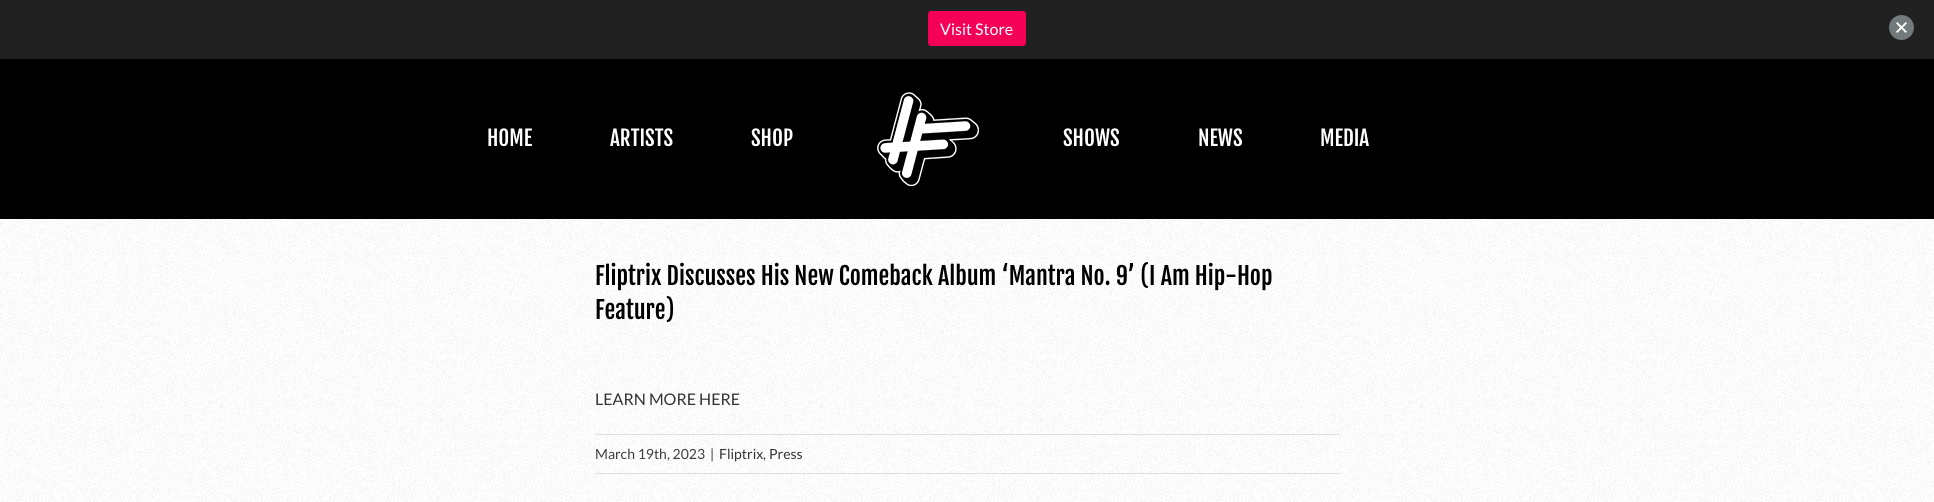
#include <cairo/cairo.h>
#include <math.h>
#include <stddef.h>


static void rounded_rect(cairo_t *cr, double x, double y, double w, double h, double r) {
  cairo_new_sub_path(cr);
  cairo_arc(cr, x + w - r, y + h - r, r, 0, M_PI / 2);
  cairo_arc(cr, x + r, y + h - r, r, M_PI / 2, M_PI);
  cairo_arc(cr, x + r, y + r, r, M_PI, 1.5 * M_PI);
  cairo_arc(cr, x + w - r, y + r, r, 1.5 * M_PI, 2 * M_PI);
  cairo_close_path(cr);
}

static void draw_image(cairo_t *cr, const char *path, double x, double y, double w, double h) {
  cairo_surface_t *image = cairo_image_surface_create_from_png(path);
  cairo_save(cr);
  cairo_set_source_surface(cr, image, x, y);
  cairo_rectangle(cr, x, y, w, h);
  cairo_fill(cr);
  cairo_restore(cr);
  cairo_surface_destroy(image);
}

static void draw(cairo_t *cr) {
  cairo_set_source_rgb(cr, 1, 1, 1);
  cairo_paint(cr);
  cairo_set_source_rgb(cr, 33 / 255.0, 33 / 255.0, 33 / 255.0);
  cairo_rectangle(cr, 0, 0, 1934, 59);
  cairo_fill(cr);
  cairo_set_source_rgb(cr, 245 / 255.0, 0, 87 / 255.0);
  rounded_rect(cr, 928, 11, 98, 35, 3);
  cairo_fill(cr);
  cairo_set_source_rgb(cr, 114 / 255.0, 122 / 255.0, 124 / 255.0);
  cairo_arc(cr, 1901.5, 27.5, 12.5, 0, 2 * M_PI);
  cairo_fill(cr);
  draw_image(cr, "images/1.png", 1896, 22, 11, 11);
  cairo_set_source_rgb(cr, 0, 0, 0);
  cairo_rectangle(cr, 0, 59, 1934, 160);
  cairo_fill(cr);
  draw_image(cr, "images/2.png", 877, 92, 102, 94);
  draw_image(cr, "images/3.png", 0, 219, 1934, 283);
  cairo_set_source_rgb(cr, 224 / 255.0, 222 / 255.0, 222 / 255.0);
  cairo_rectangle(cr, 595, 434, 745, 1);
  cairo_fill(cr);
  cairo_rectangle(cr, 595, 473, 745, 1);
  cairo_fill(cr);
  cairo_select_font_face(cr, "Lato", CAIRO_FONT_SLANT_NORMAL, CAIRO_FONT_WEIGHT_NORMAL);
  cairo_set_font_size(cr, 16);
  cairo_set_source_rgb(cr, 1, 1, 1);
  cairo_move_to(cr, 940, 35);
  cairo_show_text(cr, "Visit Store");
  cairo_select_font_face(cr, "Fjalla One", CAIRO_FONT_SLANT_NORMAL, CAIRO_FONT_WEIGHT_NORMAL);
  cairo_set_font_size(cr, 21);
  cairo_move_to(cr, 487, 146);
  cairo_show_text(cr, "HOME");
  cairo_move_to(cr, 610, 146);
  cairo_show_text(cr, "ARTISTS");
  cairo_move_to(cr, 751, 146);
  cairo_show_text(cr, "SHOP");
  cairo_move_to(cr, 1063, 146);
  cairo_show_text(cr, "SHOWS");
  cairo_move_to(cr, 1198, 146);
  cairo_show_text(cr, "NEWS");
  cairo_move_to(cr, 1320, 146);
  cairo_show_text(cr, "MEDIA");
  cairo_set_font_size(cr, 24);
  cairo_set_source_rgb(cr, 0, 0, 0);
  cairo_move_to(cr, 595, 285);
  cairo_show_text(cr, "Fliptrix Discusses His New Comeback Album ‘Mantra No. 9’ (I Am Hip-Hop");
  cairo_move_to(cr, 595, 319);
  cairo_show_text(cr, "Feature)");
  cairo_select_font_face(cr, "Lato", CAIRO_FONT_SLANT_NORMAL, CAIRO_FONT_WEIGHT_NORMAL);
  cairo_set_font_size(cr, 16);
  cairo_set_source_rgb(cr, 51 / 255.0, 51 / 255.0, 51 / 255.0);
  cairo_move_to(cr, 595, 405);
  cairo_show_text(cr, "LEARN MORE HERE");
  cairo_set_font_size(cr, 14);
  cairo_set_source_rgb(cr, 63 / 255.0, 63 / 255.0, 63 / 255.0);
  cairo_move_to(cr, 595, 459);
  cairo_show_text(cr, "March 19th, 2023");
  cairo_move_to(cr, 710, 459);
  cairo_show_text(cr, "|");
  cairo_set_source_rgb(cr, 51 / 255.0, 51 / 255.0, 51 / 255.0);
  cairo_move_to(cr, 719, 459);
  cairo_show_text(cr, "Fliptrix");
  cairo_set_source_rgb(cr, 63 / 255.0, 63 / 255.0, 63 / 255.0);
  cairo_move_to(cr, 763, 459);
  cairo_show_text(cr, ",");
  cairo_set_source_rgb(cr, 51 / 255.0, 51 / 255.0, 51 / 255.0);
  cairo_move_to(cr, 769, 459);
  cairo_show_text(cr, "Press");
}

int main(void) {
  cairo_surface_t *surface = cairo_image_surface_create(CAIRO_FORMAT_RGB24, 1934, 502);
  cairo_t *cr = cairo_create(surface);
  cairo_font_options_t *options = cairo_font_options_create();
  cairo_font_options_set_hint_metrics(options, CAIRO_HINT_METRICS_OFF);
  cairo_font_options_set_hint_style(options, CAIRO_HINT_STYLE_NONE);
  cairo_set_font_options(cr, options);
  cairo_set_miter_limit(cr, 4);
  draw(cr);
  cairo_surface_write_to_png(surface, "out.png");
  cairo_font_options_destroy(options);
  cairo_destroy(cr);
  cairo_surface_destroy(surface);
  return 0;
}
